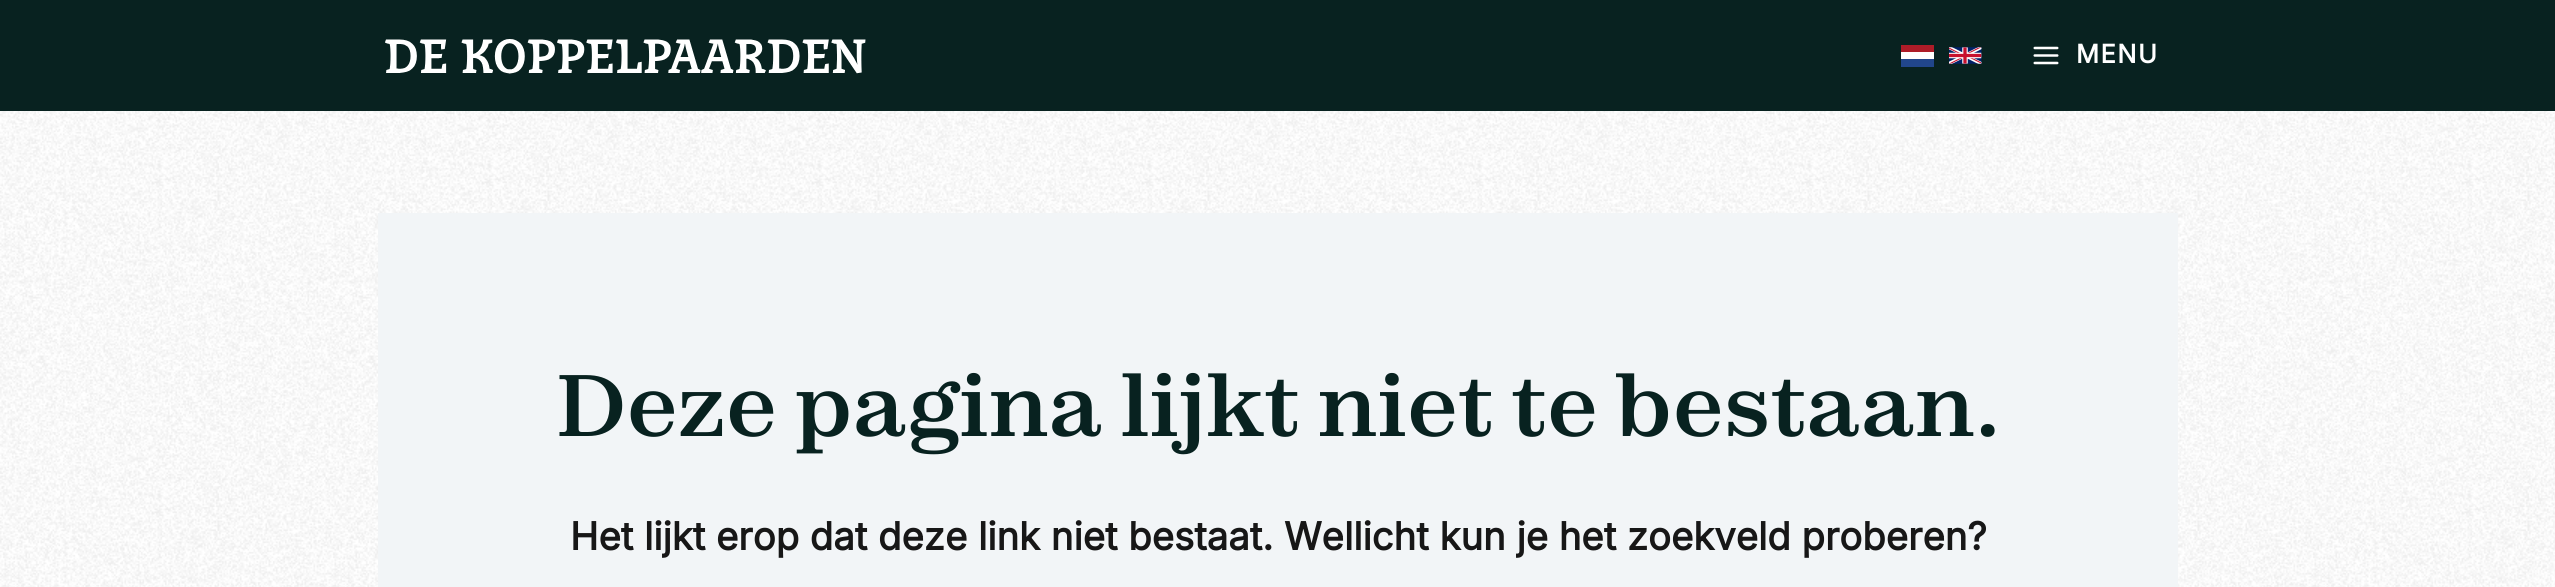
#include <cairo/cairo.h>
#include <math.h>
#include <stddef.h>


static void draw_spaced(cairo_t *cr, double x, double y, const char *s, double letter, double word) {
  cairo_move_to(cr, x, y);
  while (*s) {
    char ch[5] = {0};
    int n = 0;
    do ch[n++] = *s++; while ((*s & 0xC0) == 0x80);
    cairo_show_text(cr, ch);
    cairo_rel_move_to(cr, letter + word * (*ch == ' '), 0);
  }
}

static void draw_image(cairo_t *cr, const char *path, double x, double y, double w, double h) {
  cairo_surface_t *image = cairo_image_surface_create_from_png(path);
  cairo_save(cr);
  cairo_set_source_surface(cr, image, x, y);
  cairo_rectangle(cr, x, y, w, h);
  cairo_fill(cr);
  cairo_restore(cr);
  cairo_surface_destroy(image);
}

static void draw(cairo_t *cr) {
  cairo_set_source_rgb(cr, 1, 1, 1);
  cairo_paint(cr);
  draw_image(cr, "images/1.png", 0, 111, 2555, 476);
  cairo_set_source_rgb(cr, 8 / 255.0, 34 / 255.0, 32 / 255.0);
  cairo_rectangle(cr, 0, 0, 2555, 111);
  cairo_fill(cr);
  draw_image(cr, "images/2.png", 385, 39, 481, 35);
  cairo_set_source_rgb(cr, 33 / 255.0, 70 / 255.0, 139 / 255.0);
  cairo_rectangle(cr, 1901, 59, 33, 8);
  cairo_fill(cr);
  cairo_set_source_rgb(cr, 1, 1, 1);
  cairo_rectangle(cr, 1901, 52, 33, 7);
  cairo_fill(cr);
  cairo_set_source_rgb(cr, 174 / 255.0, 28 / 255.0, 40 / 255.0);
  cairo_rectangle(cr, 1901, 45, 33, 7);
  cairo_fill(cr);
  draw_image(cr, "images/3.png", 1949, 47, 33, 17);
  draw_image(cr, "images/4.png", 2033, 46, 26, 19);
  cairo_set_source_rgb(cr, 242 / 255.0, 245 / 255.0, 247 / 255.0);
  cairo_rectangle(cr, 378, 213, 1800, 374);
  cairo_fill(cr);
  cairo_select_font_face(cr, "Inter", CAIRO_FONT_SLANT_NORMAL, CAIRO_FONT_WEIGHT_BOLD);
  cairo_set_font_size(cr, 25.5);
  cairo_set_source_rgb(cr, 1, 1, 1);
  draw_spaced(cr, 2076, 63, "MENU", 1.5, 0);
  cairo_select_font_face(cr, "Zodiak", CAIRO_FONT_SLANT_NORMAL, CAIRO_FONT_WEIGHT_BOLD);
  cairo_set_font_size(cr, 87);
  cairo_set_source_rgb(cr, 8 / 255.0, 34 / 255.0, 32 / 255.0);
  cairo_move_to(cr, 556, 436);
  cairo_show_text(cr, "Deze pagina lijkt niet te bestaan.");
  cairo_select_font_face(cr, "Inter", CAIRO_FONT_SLANT_NORMAL, CAIRO_FONT_WEIGHT_BOLD);
  cairo_set_font_size(cr, 38.25);
  cairo_set_source_rgb(cr, 23 / 255.0, 23 / 255.0, 23 / 255.0);
  cairo_move_to(cr, 570, 550);
  cairo_show_text(cr, "Het lijkt erop dat deze link niet bestaat. Wellicht kun je het zoekveld proberen?");
}

int main(void) {
  cairo_surface_t *surface = cairo_image_surface_create(CAIRO_FORMAT_RGB24, 2555, 587);
  cairo_t *cr = cairo_create(surface);
  cairo_font_options_t *options = cairo_font_options_create();
  cairo_font_options_set_hint_metrics(options, CAIRO_HINT_METRICS_OFF);
  cairo_font_options_set_hint_style(options, CAIRO_HINT_STYLE_NONE);
  cairo_set_font_options(cr, options);
  cairo_set_miter_limit(cr, 4);
  draw(cr);
  cairo_surface_write_to_png(surface, "out.png");
  cairo_font_options_destroy(options);
  cairo_destroy(cr);
  cairo_surface_destroy(surface);
  return 0;
}
